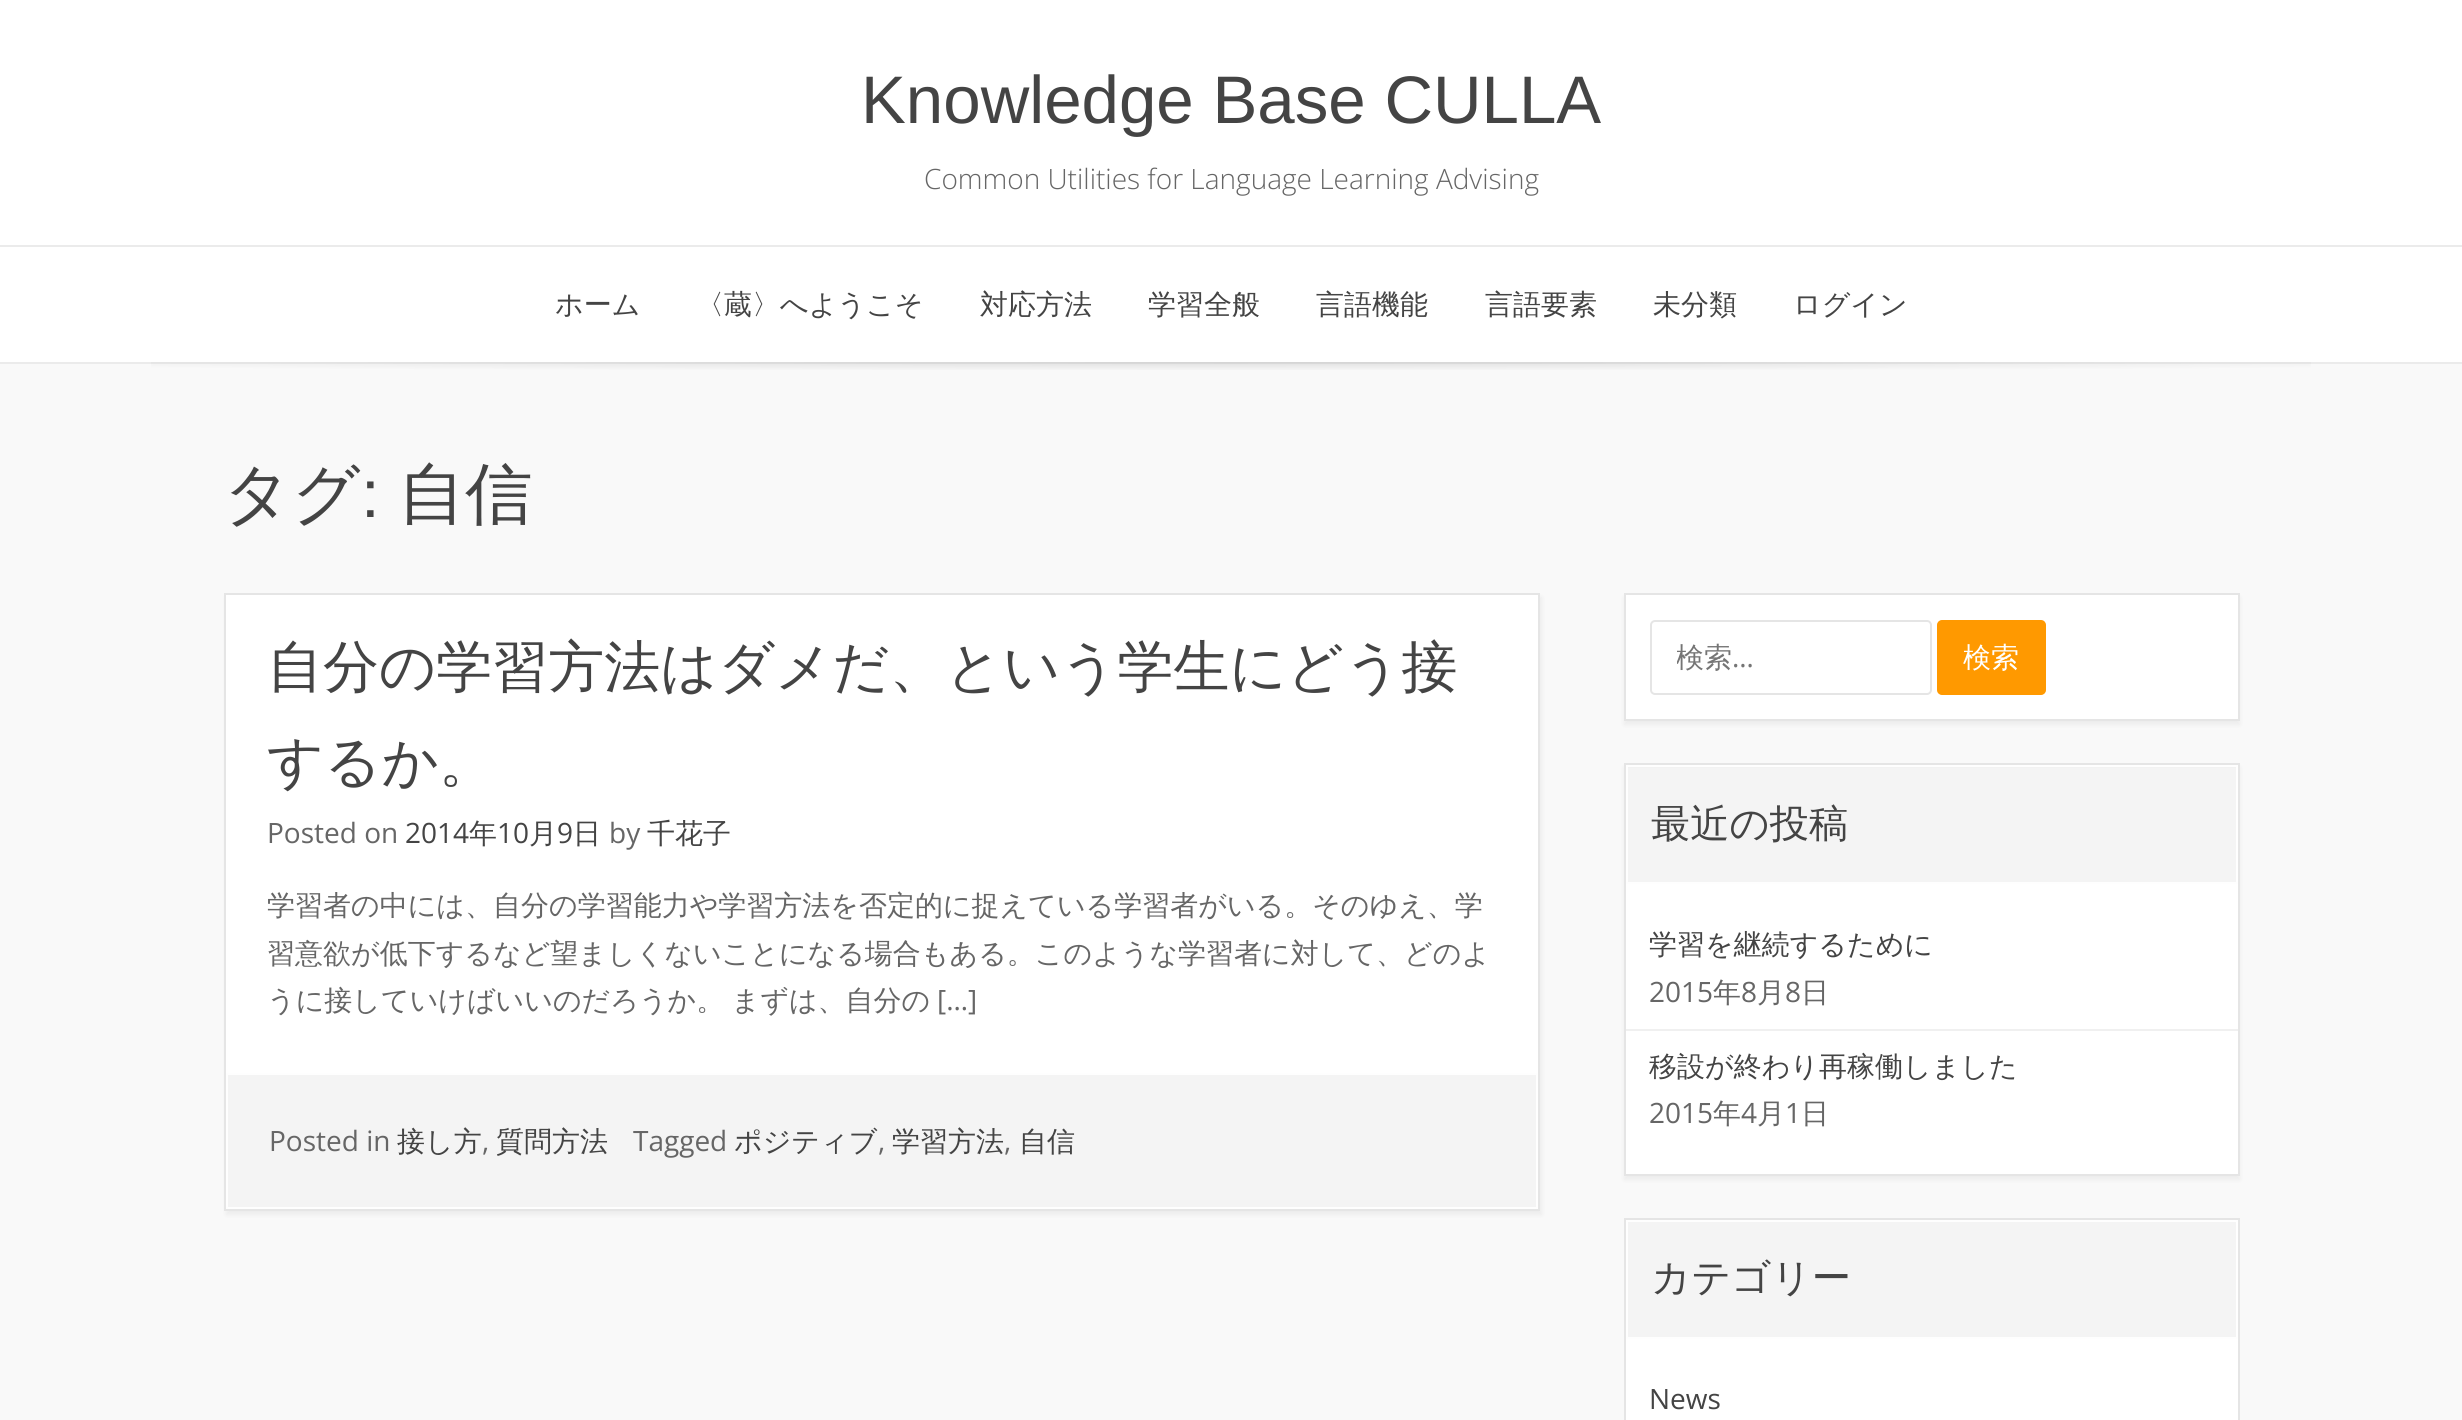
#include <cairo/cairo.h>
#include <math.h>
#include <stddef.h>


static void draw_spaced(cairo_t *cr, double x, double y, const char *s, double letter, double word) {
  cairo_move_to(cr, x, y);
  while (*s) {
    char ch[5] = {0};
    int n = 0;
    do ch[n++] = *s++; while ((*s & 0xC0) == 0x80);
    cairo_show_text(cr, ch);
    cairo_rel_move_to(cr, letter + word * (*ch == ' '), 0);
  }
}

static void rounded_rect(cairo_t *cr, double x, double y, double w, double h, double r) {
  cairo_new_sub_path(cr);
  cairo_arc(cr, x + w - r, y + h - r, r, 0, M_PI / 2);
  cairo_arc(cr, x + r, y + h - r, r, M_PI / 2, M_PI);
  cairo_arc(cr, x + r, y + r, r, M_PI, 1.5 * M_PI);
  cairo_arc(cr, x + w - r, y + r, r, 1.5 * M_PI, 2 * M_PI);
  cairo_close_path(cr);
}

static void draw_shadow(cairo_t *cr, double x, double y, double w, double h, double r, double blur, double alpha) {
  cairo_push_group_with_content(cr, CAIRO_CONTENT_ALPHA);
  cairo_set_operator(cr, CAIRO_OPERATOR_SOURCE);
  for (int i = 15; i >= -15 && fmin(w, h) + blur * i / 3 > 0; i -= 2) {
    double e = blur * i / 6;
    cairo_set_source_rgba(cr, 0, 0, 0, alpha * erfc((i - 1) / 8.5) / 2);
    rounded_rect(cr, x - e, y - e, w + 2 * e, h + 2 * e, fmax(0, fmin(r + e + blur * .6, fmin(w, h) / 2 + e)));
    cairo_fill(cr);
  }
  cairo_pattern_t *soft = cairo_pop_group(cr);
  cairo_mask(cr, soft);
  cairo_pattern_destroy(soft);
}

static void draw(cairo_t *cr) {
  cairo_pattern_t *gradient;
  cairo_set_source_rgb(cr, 249 / 255.0, 249 / 255.0, 249 / 255.0);
  cairo_paint(cr);
  cairo_set_source_rgb(cr, 1, 1, 1);
  cairo_rectangle(cr, 0, 0, 2462, 362);
  cairo_fill(cr);
  cairo_set_source_rgb(cr, 235 / 255.0, 235 / 255.0, 235 / 255.0);
  cairo_rectangle(cr, 0, 362, 2462, 2);
  cairo_fill(cr);
  cairo_rectangle(cr, 0, 245, 2462, 2);
  cairo_fill(cr);
  gradient = cairo_pattern_create_radial(0, 0, 0, 0, 0, 1);
  cairo_pattern_set_matrix(gradient, &(cairo_matrix_t){1.0 / 1741, 0, 0, 1.0 / 12, -1.0 * 1231 / 1741, -1.0 * 362 / 12});
  cairo_pattern_add_color_stop_rgba(gradient, 0, 0, 0, 0, 0.1);
  cairo_pattern_add_color_stop_rgba(gradient, 0.8, 0, 0, 0, 0);
  cairo_set_source(cr, gradient);
  cairo_pattern_destroy(gradient);
  cairo_rectangle(cr, 151, 362, 2160, 8);
  cairo_fill(cr);
  cairo_set_source_rgb(cr, 0, 0, 0);
  draw_shadow(cr, 226, 597, 1316, 618, 0, 2, 0.05);
  cairo_set_source_rgb(cr, 1, 1, 1);
  cairo_rectangle(cr, 226, 595, 1312, 478);
  cairo_fill(cr);
  cairo_rectangle(cr, 225, 594, 1314, 616);
  cairo_set_source_rgb(cr, 229 / 255.0, 229 / 255.0, 229 / 255.0);
  cairo_stroke(cr);
  cairo_set_source_rgb(cr, 244 / 255.0, 244 / 255.0, 244 / 255.0);
  cairo_rectangle(cr, 227, 1074, 1310, 134);
  cairo_fill_preserve(cr);
  cairo_set_source_rgb(cr, 254 / 255.0, 254 / 255.0, 254 / 255.0);
  cairo_stroke(cr);
  cairo_set_source_rgb(cr, 0, 0, 0);
  draw_shadow(cr, 1624, 597, 616, 128, 0, 2, 0.05);
  cairo_set_source_rgb(cr, 1, 1, 1);
  cairo_rectangle(cr, 1625, 594, 614, 126);
  cairo_fill_preserve(cr);
  cairo_set_source_rgb(cr, 229 / 255.0, 229 / 255.0, 229 / 255.0);
  cairo_stroke(cr);
  rounded_rect(cr, 1651, 621, 280, 73, 4);
  cairo_stroke(cr);
  cairo_set_source_rgb(cr, 1, 153 / 255.0, 0);
  rounded_rect(cr, 1938, 621, 107, 73, 4);
  cairo_fill_preserve(cr);
  cairo_stroke(cr);
  cairo_set_source_rgb(cr, 0, 0, 0);
  draw_shadow(cr, 1624, 767, 616, 413, 0, 2, 0.05);
  cairo_set_source_rgb(cr, 1, 1, 1);
  cairo_rectangle(cr, 1626, 884, 612, 290);
  cairo_fill(cr);
  cairo_rectangle(cr, 1625, 764, 614, 411);
  cairo_set_source_rgb(cr, 229 / 255.0, 229 / 255.0, 229 / 255.0);
  cairo_stroke(cr);
  cairo_set_source_rgb(cr, 244 / 255.0, 244 / 255.0, 244 / 255.0);
  cairo_rectangle(cr, 1628, 768, 608, 114);
  cairo_fill(cr);
  cairo_rectangle(cr, 1627, 766, 610, 117);
  cairo_set_source_rgb(cr, 254 / 255.0, 254 / 255.0, 254 / 255.0);
  cairo_stroke(cr);
  cairo_set_source_rgb(cr, 240 / 255.0, 240 / 255.0, 240 / 255.0);
  cairo_rectangle(cr, 1626, 1029, 612, 2);
  cairo_fill(cr);
  cairo_set_source_rgb(cr, 1, 1, 1);
  cairo_rectangle(cr, 1626, 1339, 612, 81);
  cairo_fill(cr);
  cairo_rectangle(cr, 1625, 1219, 614, 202);
  cairo_set_source_rgb(cr, 229 / 255.0, 229 / 255.0, 229 / 255.0);
  cairo_stroke(cr);
  cairo_set_source_rgb(cr, 244 / 255.0, 244 / 255.0, 244 / 255.0);
  cairo_rectangle(cr, 1627, 1221, 610, 117);
  cairo_fill_preserve(cr);
  cairo_set_source_rgb(cr, 254 / 255.0, 254 / 255.0, 254 / 255.0);
  cairo_stroke(cr);
  cairo_select_font_face(cr, "Liberation Sans", CAIRO_FONT_SLANT_NORMAL, CAIRO_FONT_WEIGHT_NORMAL);
  cairo_set_font_size(cr, 67.25);
  cairo_set_source_rgb(cr, 68 / 255.0, 68 / 255.0, 68 / 255.0);
  cairo_move_to(cr, 861, 123);
  cairo_show_text(cr, "Knowledge Base CULLA");
  cairo_select_font_face(cr, "Open Sans Light", CAIRO_FONT_SLANT_NORMAL, CAIRO_FONT_WEIGHT_NORMAL);
  cairo_set_font_size(cr, 28);
  cairo_set_source_rgb(cr, 102 / 255.0, 102 / 255.0, 102 / 255.0);
  cairo_move_to(cr, 924, 189);
  cairo_show_text(cr, "Common Utilities for Language Learning Advising");
  cairo_select_font_face(cr, "WenQuanYi Zen Hei Medium", CAIRO_FONT_SLANT_NORMAL, CAIRO_FONT_WEIGHT_NORMAL);
  cairo_set_source_rgb(cr, 68 / 255.0, 68 / 255.0, 68 / 255.0);
  cairo_move_to(cr, 555, 314);
  cairo_show_text(cr, "ホーム");
  cairo_move_to(cr, 696, 314);
  cairo_show_text(cr, "〈蔵〉へようこそ");
  cairo_move_to(cr, 980, 314);
  cairo_show_text(cr, "対応方法");
  cairo_move_to(cr, 1148, 314);
  cairo_show_text(cr, "学習全般");
  cairo_move_to(cr, 1316, 314);
  cairo_show_text(cr, "言語機能");
  cairo_move_to(cr, 1485, 314);
  cairo_show_text(cr, "言語要素");
  cairo_move_to(cr, 1653, 314);
  cairo_show_text(cr, "未分類");
  cairo_move_to(cr, 1793, 314);
  cairo_show_text(cr, "ログイン");
  cairo_set_font_size(cr, 67.25);
  cairo_move_to(cr, 223, 517);
  cairo_show_text(cr, "タグ");
  cairo_select_font_face(cr, "Liberation Sans", CAIRO_FONT_SLANT_NORMAL, CAIRO_FONT_WEIGHT_NORMAL);
  cairo_move_to(cr, 361, 517);
  cairo_show_text(cr, ":");
  cairo_select_font_face(cr, "WenQuanYi Zen Hei Medium", CAIRO_FONT_SLANT_NORMAL, CAIRO_FONT_WEIGHT_NORMAL);
  cairo_move_to(cr, 398, 517);
  cairo_show_text(cr, "自信");
  cairo_set_font_size(cr, 56);
  cairo_move_to(cr, 267, 686);
  cairo_show_text(cr, "自分の学習方法はダメだ、という学生にどう接");
  cairo_move_to(cr, 267, 781);
  cairo_show_text(cr, "するか。");
  cairo_select_font_face(cr, "Open Sans", CAIRO_FONT_SLANT_NORMAL, CAIRO_FONT_WEIGHT_NORMAL);
  cairo_set_font_size(cr, 28);
  cairo_set_source_rgb(cr, 102 / 255.0, 102 / 255.0, 102 / 255.0);
  cairo_move_to(cr, 267, 843);
  cairo_show_text(cr, "Posted on");
  cairo_set_source_rgb(cr, 68 / 255.0, 68 / 255.0, 68 / 255.0);
  cairo_move_to(cr, 405, 843);
  cairo_show_text(cr, "2014");
  cairo_select_font_face(cr, "WenQuanYi Zen Hei Medium", CAIRO_FONT_SLANT_NORMAL, CAIRO_FONT_WEIGHT_NORMAL);
  cairo_move_to(cr, 469, 843);
  cairo_show_text(cr, "年");
  cairo_select_font_face(cr, "Open Sans", CAIRO_FONT_SLANT_NORMAL, CAIRO_FONT_WEIGHT_NORMAL);
  cairo_move_to(cr, 497, 843);
  cairo_show_text(cr, "10");
  cairo_select_font_face(cr, "WenQuanYi Zen Hei Medium", CAIRO_FONT_SLANT_NORMAL, CAIRO_FONT_WEIGHT_NORMAL);
  cairo_move_to(cr, 529, 843);
  cairo_show_text(cr, "月");
  cairo_select_font_face(cr, "Open Sans", CAIRO_FONT_SLANT_NORMAL, CAIRO_FONT_WEIGHT_NORMAL);
  cairo_move_to(cr, 557, 843);
  cairo_show_text(cr, "9");
  cairo_select_font_face(cr, "WenQuanYi Zen Hei Medium", CAIRO_FONT_SLANT_NORMAL, CAIRO_FONT_WEIGHT_NORMAL);
  cairo_move_to(cr, 573, 843);
  cairo_show_text(cr, "日");
  cairo_select_font_face(cr, "Open Sans", CAIRO_FONT_SLANT_NORMAL, CAIRO_FONT_WEIGHT_NORMAL);
  cairo_set_source_rgb(cr, 102 / 255.0, 102 / 255.0, 102 / 255.0);
  cairo_move_to(cr, 609, 843);
  cairo_show_text(cr, "by");
  cairo_select_font_face(cr, "WenQuanYi Zen Hei Medium", CAIRO_FONT_SLANT_NORMAL, CAIRO_FONT_WEIGHT_NORMAL);
  cairo_set_source_rgb(cr, 68 / 255.0, 68 / 255.0, 68 / 255.0);
  cairo_move_to(cr, 647, 843);
  cairo_show_text(cr, "千花子");
  cairo_set_source_rgb(cr, 102 / 255.0, 102 / 255.0, 102 / 255.0);
  cairo_move_to(cr, 267, 915);
  cairo_show_text(cr, "学習者の中には、自分の学習能力や学習方法を否定的に捉えている学習者がいる。そのゆえ、学");
  cairo_move_to(cr, 267, 963);
  cairo_show_text(cr, "習意欲が低下するなど望ましくないことになる場合もある。このような学習者に対して、どのよ");
  draw_spaced(cr, 267, 1010, "うに接していけばいいのだろうか。 まずは、自分の", 0, -1);
  cairo_select_font_face(cr, "Open Sans", CAIRO_FONT_SLANT_NORMAL, CAIRO_FONT_WEIGHT_NORMAL);
  cairo_move_to(cr, 937, 1010);
  cairo_show_text(cr, "[…]");
  cairo_move_to(cr, 269, 1151);
  cairo_show_text(cr, "Posted in");
  cairo_select_font_face(cr, "WenQuanYi Zen Hei Medium", CAIRO_FONT_SLANT_NORMAL, CAIRO_FONT_WEIGHT_NORMAL);
  cairo_set_source_rgb(cr, 68 / 255.0, 68 / 255.0, 68 / 255.0);
  cairo_move_to(cr, 397, 1151);
  cairo_show_text(cr, "接し方");
  cairo_select_font_face(cr, "Open Sans", CAIRO_FONT_SLANT_NORMAL, CAIRO_FONT_WEIGHT_NORMAL);
  cairo_set_source_rgb(cr, 102 / 255.0, 102 / 255.0, 102 / 255.0);
  cairo_move_to(cr, 482, 1151);
  cairo_show_text(cr, ",");
  cairo_select_font_face(cr, "WenQuanYi Zen Hei Medium", CAIRO_FONT_SLANT_NORMAL, CAIRO_FONT_WEIGHT_NORMAL);
  cairo_set_source_rgb(cr, 68 / 255.0, 68 / 255.0, 68 / 255.0);
  cairo_move_to(cr, 496, 1151);
  cairo_show_text(cr, "質問方法");
  cairo_select_font_face(cr, "Open Sans", CAIRO_FONT_SLANT_NORMAL, CAIRO_FONT_WEIGHT_NORMAL);
  cairo_set_source_rgb(cr, 102 / 255.0, 102 / 255.0, 102 / 255.0);
  cairo_move_to(cr, 633, 1151);
  cairo_show_text(cr, "Tagged");
  cairo_select_font_face(cr, "WenQuanYi Zen Hei Medium", CAIRO_FONT_SLANT_NORMAL, CAIRO_FONT_WEIGHT_NORMAL);
  cairo_set_source_rgb(cr, 68 / 255.0, 68 / 255.0, 68 / 255.0);
  cairo_move_to(cr, 734, 1151);
  cairo_show_text(cr, "ポジティブ");
  cairo_select_font_face(cr, "Open Sans", CAIRO_FONT_SLANT_NORMAL, CAIRO_FONT_WEIGHT_NORMAL);
  cairo_set_source_rgb(cr, 102 / 255.0, 102 / 255.0, 102 / 255.0);
  cairo_move_to(cr, 878, 1151);
  cairo_show_text(cr, ",");
  cairo_select_font_face(cr, "WenQuanYi Zen Hei Medium", CAIRO_FONT_SLANT_NORMAL, CAIRO_FONT_WEIGHT_NORMAL);
  cairo_set_source_rgb(cr, 68 / 255.0, 68 / 255.0, 68 / 255.0);
  cairo_move_to(cr, 892, 1151);
  cairo_show_text(cr, "学習方法");
  cairo_select_font_face(cr, "Open Sans", CAIRO_FONT_SLANT_NORMAL, CAIRO_FONT_WEIGHT_NORMAL);
  cairo_set_source_rgb(cr, 102 / 255.0, 102 / 255.0, 102 / 255.0);
  cairo_move_to(cr, 1004, 1151);
  cairo_show_text(cr, ",");
  cairo_select_font_face(cr, "WenQuanYi Zen Hei Medium", CAIRO_FONT_SLANT_NORMAL, CAIRO_FONT_WEIGHT_NORMAL);
  cairo_set_source_rgb(cr, 68 / 255.0, 68 / 255.0, 68 / 255.0);
  cairo_move_to(cr, 1019, 1151);
  cairo_show_text(cr, "自信");
  cairo_save(cr);
  cairo_rectangle(cr, 1677, 637, 222, 40);
  cairo_clip(cr);
  cairo_set_source_rgb(cr, 117 / 255.0, 117 / 255.0, 117 / 255.0);
  cairo_move_to(cr, 1676, 667);
  cairo_show_text(cr, "検索");
  cairo_restore(cr);
  cairo_select_font_face(cr, "Open Sans", CAIRO_FONT_SLANT_NORMAL, CAIRO_FONT_WEIGHT_NORMAL);
  cairo_set_source_rgb(cr, 117 / 255.0, 117 / 255.0, 117 / 255.0);
  cairo_move_to(cr, 1732, 667);
  cairo_show_text(cr, "…");
  cairo_select_font_face(cr, "WenQuanYi Zen Hei Medium", CAIRO_FONT_SLANT_NORMAL, CAIRO_FONT_WEIGHT_NORMAL);
  cairo_set_source_rgb(cr, 1, 1, 1);
  cairo_move_to(cr, 1963, 667);
  cairo_show_text(cr, "検索");
  cairo_set_font_size(cr, 39.25);
  cairo_set_source_rgb(cr, 68 / 255.0, 68 / 255.0, 68 / 255.0);
  cairo_move_to(cr, 1651, 837);
  cairo_show_text(cr, "最近の投稿");
  cairo_set_font_size(cr, 28);
  cairo_move_to(cr, 1649, 954);
  cairo_show_text(cr, "学習を継続するために");
  cairo_select_font_face(cr, "Open Sans", CAIRO_FONT_SLANT_NORMAL, CAIRO_FONT_WEIGHT_NORMAL);
  cairo_set_source_rgb(cr, 102 / 255.0, 102 / 255.0, 102 / 255.0);
  cairo_move_to(cr, 1649, 1002);
  cairo_show_text(cr, "2015");
  cairo_select_font_face(cr, "WenQuanYi Zen Hei Medium", CAIRO_FONT_SLANT_NORMAL, CAIRO_FONT_WEIGHT_NORMAL);
  cairo_move_to(cr, 1713, 1002);
  cairo_show_text(cr, "年");
  cairo_select_font_face(cr, "Open Sans", CAIRO_FONT_SLANT_NORMAL, CAIRO_FONT_WEIGHT_NORMAL);
  cairo_move_to(cr, 1741, 1002);
  cairo_show_text(cr, "8");
  cairo_select_font_face(cr, "WenQuanYi Zen Hei Medium", CAIRO_FONT_SLANT_NORMAL, CAIRO_FONT_WEIGHT_NORMAL);
  cairo_move_to(cr, 1757, 1002);
  cairo_show_text(cr, "月");
  cairo_select_font_face(cr, "Open Sans", CAIRO_FONT_SLANT_NORMAL, CAIRO_FONT_WEIGHT_NORMAL);
  cairo_move_to(cr, 1785, 1002);
  cairo_show_text(cr, "8");
  cairo_select_font_face(cr, "WenQuanYi Zen Hei Medium", CAIRO_FONT_SLANT_NORMAL, CAIRO_FONT_WEIGHT_NORMAL);
  cairo_move_to(cr, 1801, 1002);
  cairo_show_text(cr, "日");
  cairo_set_source_rgb(cr, 68 / 255.0, 68 / 255.0, 68 / 255.0);
  cairo_move_to(cr, 1649, 1076);
  cairo_show_text(cr, "移設が終わり再稼働しました");
  cairo_select_font_face(cr, "Open Sans", CAIRO_FONT_SLANT_NORMAL, CAIRO_FONT_WEIGHT_NORMAL);
  cairo_set_source_rgb(cr, 102 / 255.0, 102 / 255.0, 102 / 255.0);
  cairo_move_to(cr, 1649, 1123);
  cairo_show_text(cr, "2015");
  cairo_select_font_face(cr, "WenQuanYi Zen Hei Medium", CAIRO_FONT_SLANT_NORMAL, CAIRO_FONT_WEIGHT_NORMAL);
  cairo_move_to(cr, 1713, 1123);
  cairo_show_text(cr, "年");
  cairo_select_font_face(cr, "Open Sans", CAIRO_FONT_SLANT_NORMAL, CAIRO_FONT_WEIGHT_NORMAL);
  cairo_move_to(cr, 1741, 1123);
  cairo_show_text(cr, "4");
  cairo_select_font_face(cr, "WenQuanYi Zen Hei Medium", CAIRO_FONT_SLANT_NORMAL, CAIRO_FONT_WEIGHT_NORMAL);
  cairo_move_to(cr, 1757, 1123);
  cairo_show_text(cr, "月");
  cairo_select_font_face(cr, "Open Sans", CAIRO_FONT_SLANT_NORMAL, CAIRO_FONT_WEIGHT_NORMAL);
  cairo_move_to(cr, 1785, 1123);
  cairo_show_text(cr, "1");
  cairo_select_font_face(cr, "WenQuanYi Zen Hei Medium", CAIRO_FONT_SLANT_NORMAL, CAIRO_FONT_WEIGHT_NORMAL);
  cairo_move_to(cr, 1801, 1123);
  cairo_show_text(cr, "日");
  cairo_set_font_size(cr, 39.25);
  cairo_set_source_rgb(cr, 68 / 255.0, 68 / 255.0, 68 / 255.0);
  cairo_move_to(cr, 1651, 1291);
  cairo_show_text(cr, "カテゴリー");
  cairo_select_font_face(cr, "Open Sans", CAIRO_FONT_SLANT_NORMAL, CAIRO_FONT_WEIGHT_NORMAL);
  cairo_set_font_size(cr, 28);
  cairo_move_to(cr, 1649, 1409);
  cairo_show_text(cr, "News");
}

int main(void) {
  cairo_surface_t *surface = cairo_image_surface_create(CAIRO_FORMAT_RGB24, 2462, 1420);
  cairo_t *cr = cairo_create(surface);
  cairo_font_options_t *options = cairo_font_options_create();
  cairo_font_options_set_hint_metrics(options, CAIRO_HINT_METRICS_OFF);
  cairo_font_options_set_hint_style(options, CAIRO_HINT_STYLE_NONE);
  cairo_set_font_options(cr, options);
  cairo_set_miter_limit(cr, 4);
  draw(cr);
  cairo_surface_write_to_png(surface, "out.png");
  cairo_font_options_destroy(options);
  cairo_destroy(cr);
  cairo_surface_destroy(surface);
  return 0;
}
